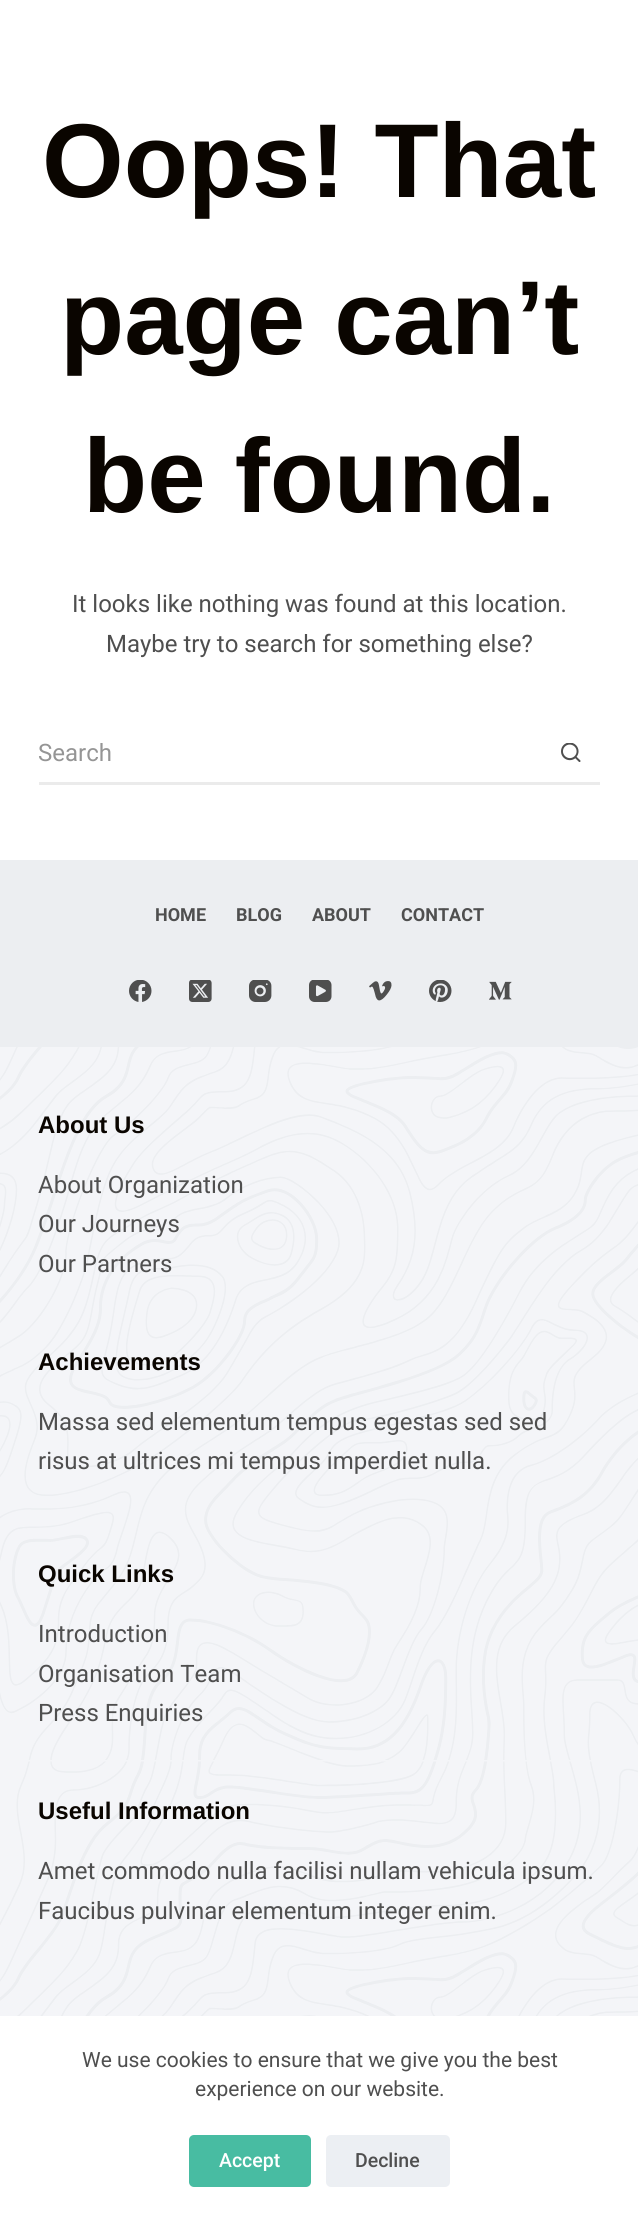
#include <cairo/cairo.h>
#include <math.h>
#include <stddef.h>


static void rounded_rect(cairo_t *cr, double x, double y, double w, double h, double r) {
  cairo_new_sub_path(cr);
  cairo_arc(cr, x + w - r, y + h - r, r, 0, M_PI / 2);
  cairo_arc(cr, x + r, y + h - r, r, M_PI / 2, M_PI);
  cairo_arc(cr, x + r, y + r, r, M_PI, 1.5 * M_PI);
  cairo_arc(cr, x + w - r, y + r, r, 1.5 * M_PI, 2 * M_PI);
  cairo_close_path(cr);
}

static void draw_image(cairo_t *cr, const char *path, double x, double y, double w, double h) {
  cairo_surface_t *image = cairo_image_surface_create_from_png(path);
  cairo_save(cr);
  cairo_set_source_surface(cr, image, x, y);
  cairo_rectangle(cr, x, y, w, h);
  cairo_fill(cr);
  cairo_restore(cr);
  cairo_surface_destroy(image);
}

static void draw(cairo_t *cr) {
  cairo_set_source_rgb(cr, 1, 1, 1);
  cairo_paint(cr);
  cairo_set_source_rgb(cr, 235 / 255.0, 235 / 255.0, 235 / 255.0);
  cairo_rectangle(cr, 39, 782, 561, 3);
  cairo_fill(cr);
  draw_image(cr, "images/1.png", 561, 743, 20, 19);
  cairo_set_source_rgb(cr, 244 / 255.0, 245 / 255.0, 248 / 255.0);
  cairo_rectangle(cr, 0, 1047, 638, 969);
  cairo_fill(cr);
  draw_image(cr, "images/2.png", 0, 1047, 638, 969);
  cairo_set_source_rgb(cr, 236 / 255.0, 238 / 255.0, 241 / 255.0);
  cairo_rectangle(cr, 0, 860, 638, 187);
  cairo_fill(cr);
  draw_image(cr, "images/3.png", 129, 980, 23, 22);
  draw_image(cr, "images/4.png", 189, 980, 23, 22);
  draw_image(cr, "images/5.png", 249, 980, 23, 22);
  draw_image(cr, "images/6.png", 309, 980, 23, 22);
  draw_image(cr, "images/7.png", 369, 981, 23, 20);
  draw_image(cr, "images/8.png", 429, 980, 23, 22);
  draw_image(cr, "images/9.png", 489, 981, 23, 19);
  cairo_set_source_rgb(cr, 72 / 255.0, 188 / 255.0, 162 / 255.0);
  rounded_rect(cr, 189, 2135, 122, 52, 5);
  cairo_fill(cr);
  cairo_set_source_rgb(cr, 236 / 255.0, 239 / 255.0, 243 / 255.0);
  rounded_rect(cr, 326, 2135, 124, 52, 5);
  cairo_fill(cr);
  cairo_select_font_face(cr, "Liberation Sans", CAIRO_FONT_SLANT_NORMAL, CAIRO_FONT_WEIGHT_BOLD);
  cairo_set_font_size(cr, 105);
  cairo_set_source_rgb(cr, 10 / 255.0, 5 / 255.0, 0);
  cairo_move_to(cr, 42, 197);
  cairo_show_text(cr, "Oops! That");
  cairo_move_to(cr, 60, 354);
  cairo_show_text(cr, "page can’t");
  cairo_move_to(cr, 83, 512);
  cairo_show_text(cr, "be found.");
  cairo_select_font_face(cr, "Roboto", CAIRO_FONT_SLANT_NORMAL, CAIRO_FONT_WEIGHT_NORMAL);
  cairo_set_font_size(cr, 24);
  cairo_set_source_rgb(cr, 79 / 255.0, 79 / 255.0, 79 / 255.0);
  cairo_move_to(cr, 72, 612);
  cairo_show_text(cr, "It looks like nothing was found at this location.");
  cairo_move_to(cr, 106, 652);
  cairo_show_text(cr, "Maybe try to search for something else?");
  cairo_set_source_rgb(cr, 149 / 255.0, 149 / 255.0, 149 / 255.0);
  cairo_move_to(cr, 38, 761);
  cairo_show_text(cr, "Search");
  cairo_select_font_face(cr, "Roboto", CAIRO_FONT_SLANT_NORMAL, CAIRO_FONT_WEIGHT_BOLD);
  cairo_set_font_size(cr, 18);
  cairo_set_source_rgb(cr, 79 / 255.0, 79 / 255.0, 79 / 255.0);
  cairo_move_to(cr, 155, 921);
  cairo_show_text(cr, "HOME");
  cairo_move_to(cr, 236, 921);
  cairo_show_text(cr, "BLOG");
  cairo_move_to(cr, 312, 921);
  cairo_show_text(cr, "ABOUT");
  cairo_move_to(cr, 401, 921);
  cairo_show_text(cr, "CONTACT");
  cairo_select_font_face(cr, "Liberation Sans", CAIRO_FONT_SLANT_NORMAL, CAIRO_FONT_WEIGHT_BOLD);
  cairo_set_font_size(cr, 24);
  cairo_set_source_rgb(cr, 10 / 255.0, 5 / 255.0, 0);
  cairo_move_to(cr, 38, 1133);
  cairo_show_text(cr, "About Us");
  cairo_select_font_face(cr, "Roboto", CAIRO_FONT_SLANT_NORMAL, CAIRO_FONT_WEIGHT_NORMAL);
  cairo_set_source_rgb(cr, 79 / 255.0, 79 / 255.0, 79 / 255.0);
  cairo_move_to(cr, 38, 1193);
  cairo_show_text(cr, "About Organization");
  cairo_move_to(cr, 38, 1232);
  cairo_show_text(cr, "Our Journeys");
  cairo_move_to(cr, 38, 1272);
  cairo_show_text(cr, "Our Partners");
  cairo_select_font_face(cr, "Liberation Sans", CAIRO_FONT_SLANT_NORMAL, CAIRO_FONT_WEIGHT_BOLD);
  cairo_set_source_rgb(cr, 10 / 255.0, 5 / 255.0, 0);
  cairo_move_to(cr, 38, 1370);
  cairo_show_text(cr, "Achievements");
  cairo_select_font_face(cr, "Roboto", CAIRO_FONT_SLANT_NORMAL, CAIRO_FONT_WEIGHT_NORMAL);
  cairo_set_source_rgb(cr, 79 / 255.0, 79 / 255.0, 79 / 255.0);
  cairo_move_to(cr, 38, 1430);
  cairo_show_text(cr, "Massa sed elementum tempus egestas sed sed");
  cairo_move_to(cr, 38, 1469);
  cairo_show_text(cr, "risus at ultrices mi tempus imperdiet nulla.");
  cairo_select_font_face(cr, "Liberation Sans", CAIRO_FONT_SLANT_NORMAL, CAIRO_FONT_WEIGHT_BOLD);
  cairo_set_source_rgb(cr, 10 / 255.0, 5 / 255.0, 0);
  cairo_move_to(cr, 38, 1582);
  cairo_show_text(cr, "Quick Links");
  cairo_select_font_face(cr, "Roboto", CAIRO_FONT_SLANT_NORMAL, CAIRO_FONT_WEIGHT_NORMAL);
  cairo_set_source_rgb(cr, 79 / 255.0, 79 / 255.0, 79 / 255.0);
  cairo_move_to(cr, 38, 1642);
  cairo_show_text(cr, "Introduction");
  cairo_move_to(cr, 38, 1682);
  cairo_show_text(cr, "Organisation Team");
  cairo_move_to(cr, 38, 1721);
  cairo_show_text(cr, "Press Enquiries");
  cairo_select_font_face(cr, "Liberation Sans", CAIRO_FONT_SLANT_NORMAL, CAIRO_FONT_WEIGHT_BOLD);
  cairo_set_source_rgb(cr, 10 / 255.0, 5 / 255.0, 0);
  cairo_move_to(cr, 38, 1819);
  cairo_show_text(cr, "Useful Information");
  cairo_select_font_face(cr, "Roboto", CAIRO_FONT_SLANT_NORMAL, CAIRO_FONT_WEIGHT_NORMAL);
  cairo_set_source_rgb(cr, 79 / 255.0, 79 / 255.0, 79 / 255.0);
  cairo_move_to(cr, 38, 1879);
  cairo_show_text(cr, "Amet commodo nulla facilisi nullam vehicula ipsum.");
  cairo_move_to(cr, 38, 1919);
  cairo_show_text(cr, "Faucibus pulvinar elementum integer enim.");
  cairo_set_font_size(cr, 21);
  cairo_move_to(cr, 82, 2067);
  cairo_show_text(cr, "We use cookies to ensure that we give you the best");
  cairo_move_to(cr, 195, 2096);
  cairo_show_text(cr, "experience on our website.");
  cairo_select_font_face(cr, "Roboto Medium", CAIRO_FONT_SLANT_NORMAL, CAIRO_FONT_WEIGHT_NORMAL);
  cairo_set_font_size(cr, 19.5);
  cairo_set_source_rgb(cr, 1, 1, 1);
  cairo_move_to(cr, 219, 2167);
  cairo_show_text(cr, "Accept");
  cairo_set_source_rgb(cr, 79 / 255.0, 79 / 255.0, 79 / 255.0);
  cairo_move_to(cr, 355, 2167);
  cairo_show_text(cr, "Decline");
}

int main(void) {
  cairo_surface_t *surface = cairo_image_surface_create(CAIRO_FORMAT_RGB24, 638, 2217);
  cairo_t *cr = cairo_create(surface);
  cairo_font_options_t *options = cairo_font_options_create();
  cairo_font_options_set_hint_metrics(options, CAIRO_HINT_METRICS_OFF);
  cairo_font_options_set_hint_style(options, CAIRO_HINT_STYLE_NONE);
  cairo_set_font_options(cr, options);
  cairo_set_miter_limit(cr, 4);
  draw(cr);
  cairo_surface_write_to_png(surface, "out.png");
  cairo_font_options_destroy(options);
  cairo_destroy(cr);
  cairo_surface_destroy(surface);
  return 0;
}
